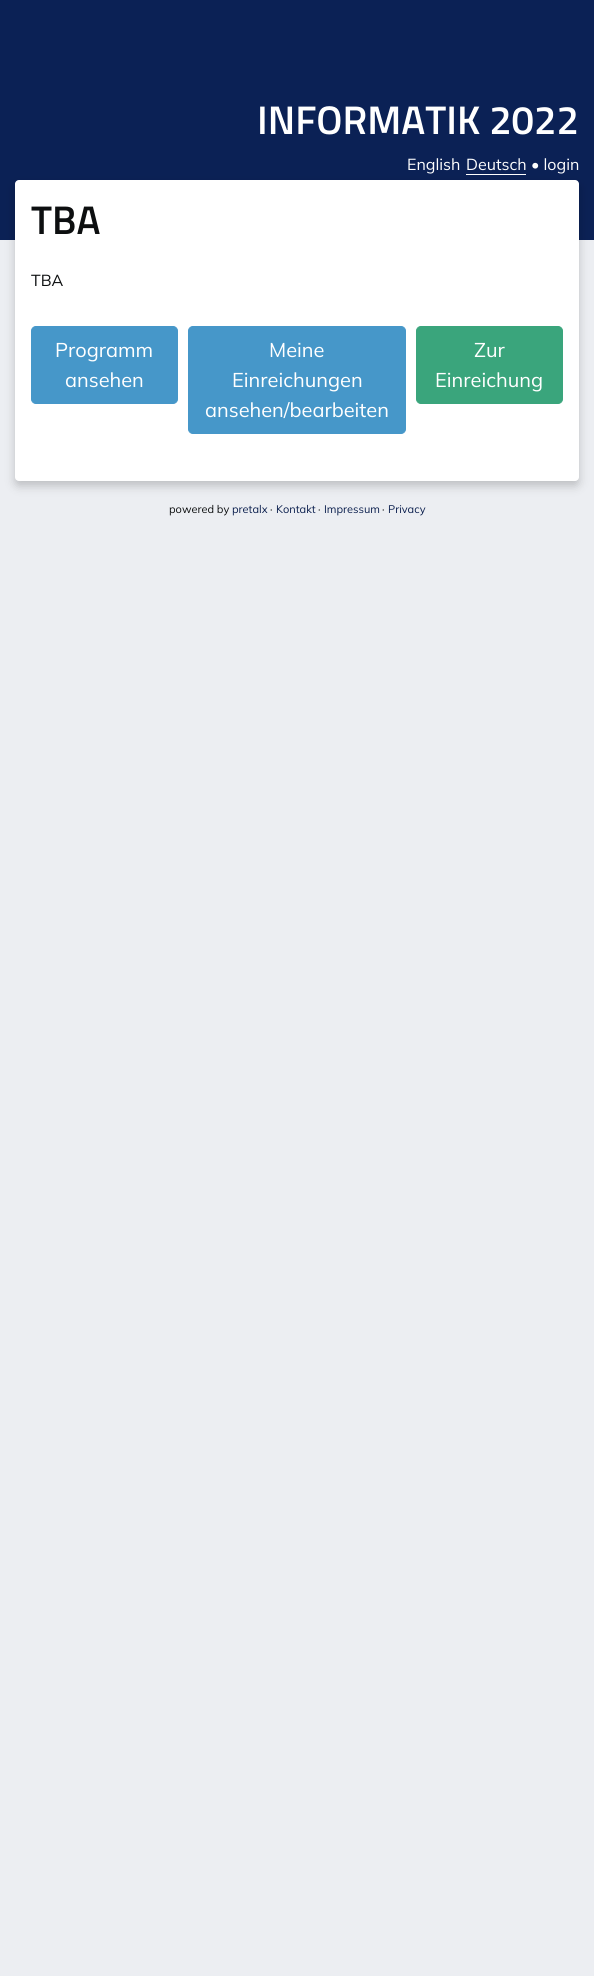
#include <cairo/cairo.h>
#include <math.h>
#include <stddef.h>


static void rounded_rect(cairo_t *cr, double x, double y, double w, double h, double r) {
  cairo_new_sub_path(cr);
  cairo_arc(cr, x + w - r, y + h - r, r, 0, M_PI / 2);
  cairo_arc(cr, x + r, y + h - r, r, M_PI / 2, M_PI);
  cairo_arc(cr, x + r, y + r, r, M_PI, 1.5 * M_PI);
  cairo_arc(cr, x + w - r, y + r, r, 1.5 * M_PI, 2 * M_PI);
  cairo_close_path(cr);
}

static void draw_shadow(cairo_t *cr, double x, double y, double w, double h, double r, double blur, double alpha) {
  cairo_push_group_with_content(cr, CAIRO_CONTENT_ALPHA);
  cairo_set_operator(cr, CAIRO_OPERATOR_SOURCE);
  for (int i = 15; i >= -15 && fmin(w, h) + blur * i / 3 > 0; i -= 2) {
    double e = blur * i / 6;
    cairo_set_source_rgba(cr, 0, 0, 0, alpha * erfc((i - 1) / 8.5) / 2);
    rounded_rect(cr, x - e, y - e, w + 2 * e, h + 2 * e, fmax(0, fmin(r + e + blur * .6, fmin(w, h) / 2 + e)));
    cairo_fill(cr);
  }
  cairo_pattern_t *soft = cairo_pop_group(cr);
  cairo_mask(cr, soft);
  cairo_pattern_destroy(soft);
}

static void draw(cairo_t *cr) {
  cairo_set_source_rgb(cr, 236 / 255.0, 238 / 255.0, 242 / 255.0);
  cairo_paint(cr);
  cairo_set_source_rgb(cr, 11 / 255.0, 33 / 255.0, 85 / 255.0);
  cairo_rectangle(cr, 0, 0, 594, 240);
  cairo_fill(cr);
  cairo_set_source_rgb(cr, 1, 1, 1);
  cairo_rectangle(cr, 466, 174, 60, 1);
  cairo_fill(cr);
  cairo_set_source_rgb(cr, 0, 0, 0);
  draw_shadow(cr, 15, 185, 564, 301, 4, 5, 0.2);
  cairo_set_source_rgb(cr, 1, 1, 1);
  rounded_rect(cr, 15, 180, 564, 301, 4);
  cairo_fill(cr);
  cairo_set_source_rgb(cr, 70 / 255.0, 151 / 255.0, 201 / 255.0);
  rounded_rect(cr, 31.5, 326.5, 146, 77, 4.5);
  cairo_fill_preserve(cr);
  cairo_set_line_width(cr, 1);
  cairo_stroke(cr);
  rounded_rect(cr, 188.5, 326.5, 217, 107, 4.5);
  cairo_fill_preserve(cr);
  cairo_stroke(cr);
  cairo_set_source_rgb(cr, 58 / 255.0, 165 / 255.0, 124 / 255.0);
  rounded_rect(cr, 416.5, 326.5, 146, 77, 4.5);
  cairo_fill_preserve(cr);
  cairo_stroke(cr);
  cairo_select_font_face(cr, "Titillium Web SemiBold", CAIRO_FONT_SLANT_NORMAL, CAIRO_FONT_WEIGHT_NORMAL);
  cairo_set_font_size(cr, 40);
  cairo_set_source_rgb(cr, 1, 1, 1);
  cairo_move_to(cr, 257, 134);
  cairo_show_text(cr, "INFORMATIK 2022");
  cairo_select_font_face(cr, "Mulish ExtraLight", CAIRO_FONT_SLANT_NORMAL, CAIRO_FONT_WEIGHT_NORMAL);
  cairo_set_font_size(cr, 16);
  cairo_move_to(cr, 407, 170);
  cairo_show_text(cr, "English");
  cairo_move_to(cr, 466, 170);
  cairo_show_text(cr, "Deutsch • login");
  cairo_select_font_face(cr, "Titillium Web SemiBold", CAIRO_FONT_SLANT_NORMAL, CAIRO_FONT_WEIGHT_NORMAL);
  cairo_set_font_size(cr, 40);
  cairo_set_source_rgb(cr, 13 / 255.0, 15 / 255.0, 16 / 255.0);
  cairo_move_to(cr, 31, 234);
  cairo_show_text(cr, "TBA");
  cairo_select_font_face(cr, "Mulish ExtraLight", CAIRO_FONT_SLANT_NORMAL, CAIRO_FONT_WEIGHT_NORMAL);
  cairo_set_font_size(cr, 16);
  cairo_move_to(cr, 31, 286);
  cairo_show_text(cr, "TBA");
  cairo_set_font_size(cr, 20);
  cairo_set_source_rgb(cr, 1, 1, 1);
  cairo_move_to(cr, 55, 357);
  cairo_show_text(cr, "Programm");
  cairo_move_to(cr, 65, 387);
  cairo_show_text(cr, "ansehen");
  cairo_move_to(cr, 269, 357);
  cairo_show_text(cr, "Meine");
  cairo_move_to(cr, 232, 387);
  cairo_show_text(cr, "Einreichungen");
  cairo_move_to(cr, 205, 417);
  cairo_show_text(cr, "ansehen/bearbeiten");
  cairo_move_to(cr, 474, 357);
  cairo_show_text(cr, "Zur");
  cairo_move_to(cr, 435, 387);
  cairo_show_text(cr, "Einreichung");
  cairo_set_font_size(cr, 11);
  cairo_set_source_rgb(cr, 13 / 255.0, 15 / 255.0, 16 / 255.0);
  cairo_move_to(cr, 169, 513);
  cairo_show_text(cr, "powered by");
  cairo_set_source_rgb(cr, 10 / 255.0, 30 / 255.0, 77 / 255.0);
  cairo_move_to(cr, 232, 513);
  cairo_show_text(cr, "pretalx");
  cairo_set_source_rgb(cr, 13 / 255.0, 15 / 255.0, 16 / 255.0);
  cairo_move_to(cr, 270, 513);
  cairo_show_text(cr, "·");
  cairo_set_source_rgb(cr, 10 / 255.0, 30 / 255.0, 77 / 255.0);
  cairo_move_to(cr, 276, 513);
  cairo_show_text(cr, "Kontakt");
  cairo_set_source_rgb(cr, 13 / 255.0, 15 / 255.0, 16 / 255.0);
  cairo_move_to(cr, 318, 513);
  cairo_show_text(cr, "·");
  cairo_set_source_rgb(cr, 10 / 255.0, 30 / 255.0, 77 / 255.0);
  cairo_move_to(cr, 324, 513);
  cairo_show_text(cr, "Impressum");
  cairo_set_source_rgb(cr, 13 / 255.0, 15 / 255.0, 16 / 255.0);
  cairo_move_to(cr, 382, 513);
  cairo_show_text(cr, "·");
  cairo_set_source_rgb(cr, 10 / 255.0, 30 / 255.0, 77 / 255.0);
  cairo_move_to(cr, 388, 513);
  cairo_show_text(cr, "Privacy");
}

int main(void) {
  cairo_surface_t *surface = cairo_image_surface_create(CAIRO_FORMAT_RGB24, 594, 1976);
  cairo_t *cr = cairo_create(surface);
  cairo_font_options_t *options = cairo_font_options_create();
  cairo_font_options_set_hint_metrics(options, CAIRO_HINT_METRICS_OFF);
  cairo_font_options_set_hint_style(options, CAIRO_HINT_STYLE_NONE);
  cairo_set_font_options(cr, options);
  cairo_set_miter_limit(cr, 4);
  draw(cr);
  cairo_surface_write_to_png(surface, "out.png");
  cairo_font_options_destroy(options);
  cairo_destroy(cr);
  cairo_surface_destroy(surface);
  return 0;
}
